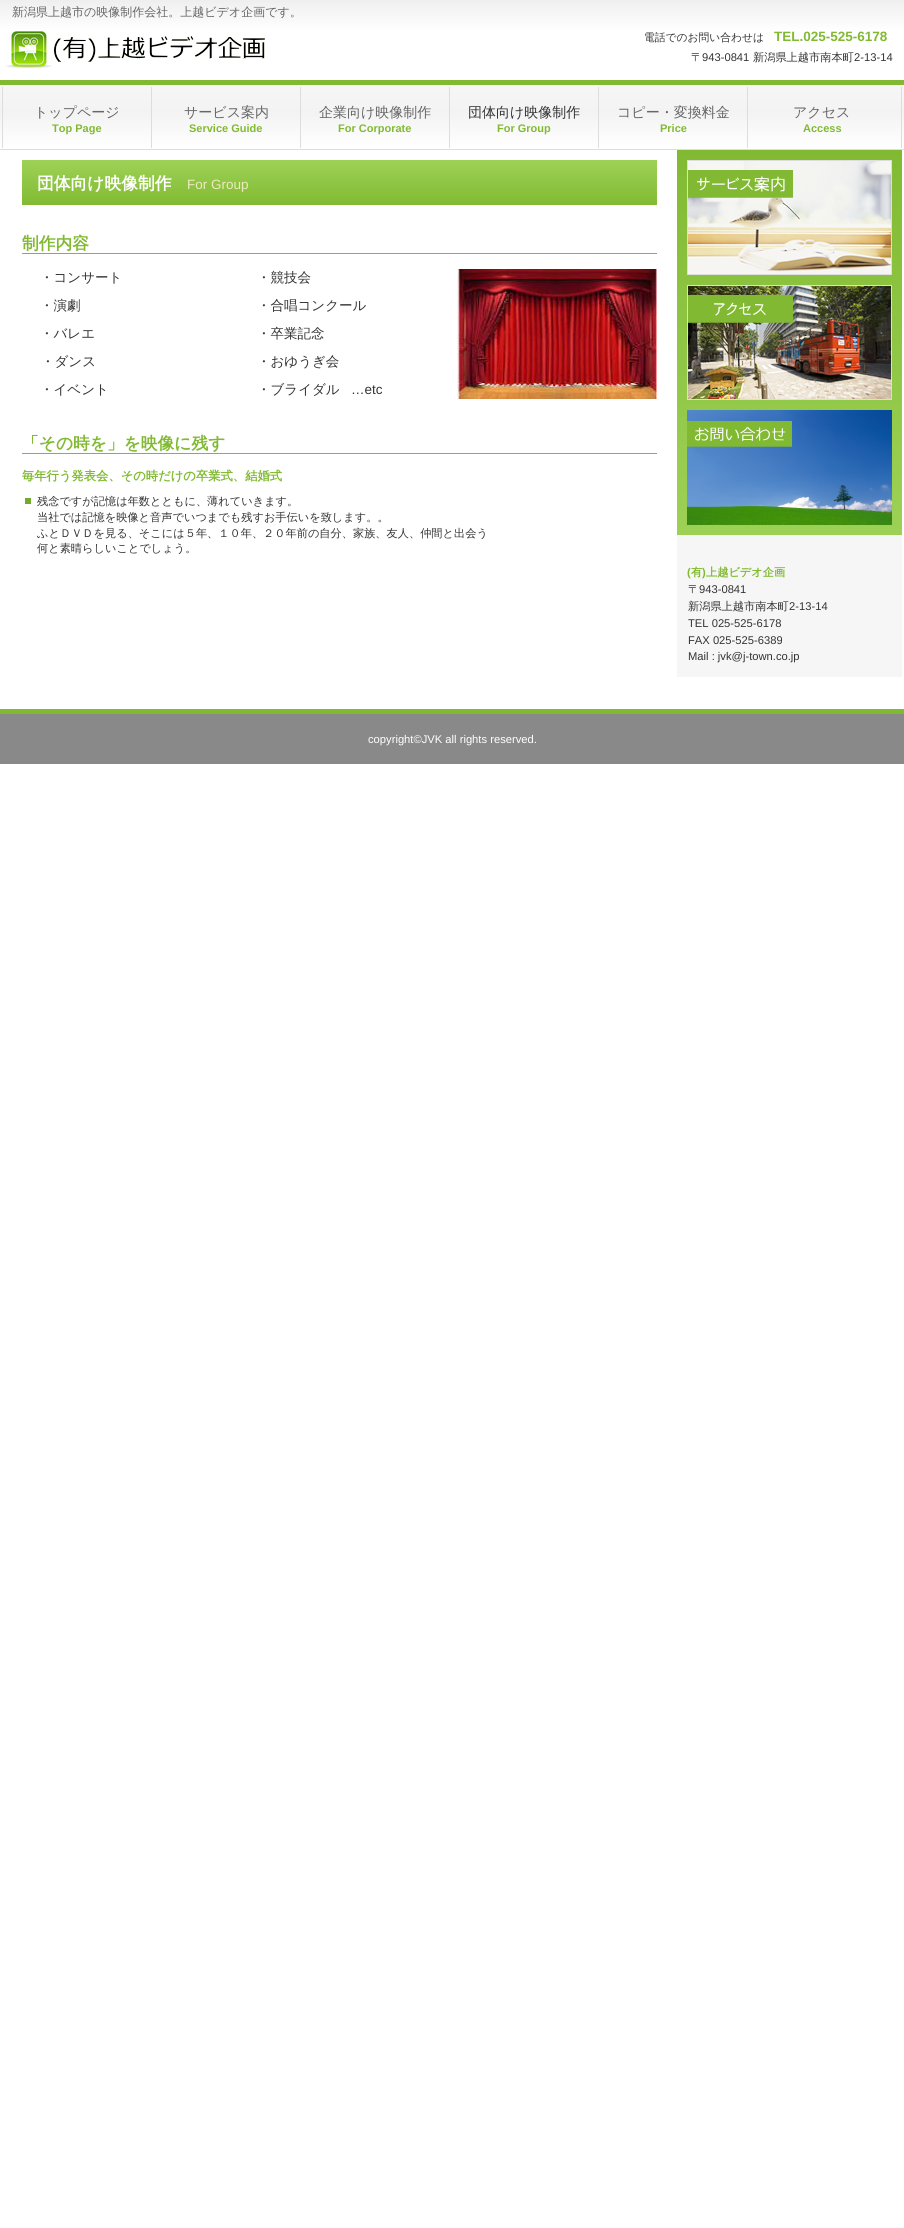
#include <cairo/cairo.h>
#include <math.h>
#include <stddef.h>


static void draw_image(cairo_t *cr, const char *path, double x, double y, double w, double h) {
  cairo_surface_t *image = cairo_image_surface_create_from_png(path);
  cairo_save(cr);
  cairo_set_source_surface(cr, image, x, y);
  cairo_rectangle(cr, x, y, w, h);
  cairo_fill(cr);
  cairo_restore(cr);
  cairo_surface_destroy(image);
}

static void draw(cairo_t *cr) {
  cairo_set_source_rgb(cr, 1, 1, 1);
  cairo_paint(cr);
  draw_image(cr, "images/1.png", 0, 0, 904, 150);
  draw_image(cr, "images/2.png", 0, 709, 904, 55);
  draw_image(cr, "images/3.png", 5, 30, 260, 39);
  cairo_set_source_rgb(cr, 221 / 255.0, 221 / 255.0, 221 / 255.0);
  cairo_rectangle(cr, 901, 87, 1, 61);
  cairo_fill(cr);
  cairo_rectangle(cr, 2, 87, 1, 61);
  cairo_fill(cr);
  cairo_rectangle(cr, 151, 87, 1, 61);
  cairo_fill(cr);
  cairo_rectangle(cr, 300, 87, 1, 61);
  cairo_fill(cr);
  cairo_rectangle(cr, 449, 87, 1, 61);
  cairo_fill(cr);
  cairo_rectangle(cr, 598, 87, 1, 61);
  cairo_fill(cr);
  cairo_rectangle(cr, 747, 87, 1, 61);
  cairo_fill(cr);
  draw_image(cr, "images/4.png", 22, 160, 635, 45);
  cairo_set_source_rgb(cr, 129 / 255.0, 186 / 255.0, 50 / 255.0);
  cairo_rectangle(cr, 22, 253, 635, 1);
  cairo_fill(cr);
  draw_image(cr, "images/5.png", 457, 269, 200, 130);
  cairo_rectangle(cr, 22, 453, 635, 1);
  cairo_fill(cr);
  cairo_set_source_rgb(cr, 116 / 255.0, 169 / 255.0, 45 / 255.0);
  cairo_rectangle(cr, 25, 498, 6, 6);
  cairo_fill(cr);
  draw_image(cr, "images/6.png", 677, 150, 225, 385);
  draw_image(cr, "images/7.png", 687, 160, 205, 115);
  draw_image(cr, "images/8.png", 687, 285, 205, 115);
  draw_image(cr, "images/9.png", 687, 410, 205, 115);
  cairo_set_source_rgb(cr, 246 / 255.0, 246 / 255.0, 246 / 255.0);
  cairo_rectangle(cr, 677, 535, 225, 142);
  cairo_fill(cr);
  cairo_select_font_face(cr, "WenQuanYi Zen Hei Medium", CAIRO_FONT_SLANT_NORMAL, CAIRO_FONT_WEIGHT_NORMAL);
  cairo_set_font_size(cr, 12);
  cairo_set_source_rgb(cr, 102 / 255.0, 102 / 255.0, 102 / 255.0);
  cairo_move_to(cr, 12, 16);
  cairo_show_text(cr, "新潟県上越市の映像制作会社。上越ビデオ企画です。");
  cairo_set_font_size(cr, 10.75);
  cairo_set_source_rgb(cr, 51 / 255.0, 51 / 255.0, 51 / 255.0);
  cairo_move_to(cr, 644, 41);
  cairo_show_text(cr, "電話でのお問い合わせは");
  cairo_select_font_face(cr, "Liberation Sans", CAIRO_FONT_SLANT_NORMAL, CAIRO_FONT_WEIGHT_BOLD);
  cairo_set_font_size(cr, 13.5);
  cairo_set_source_rgb(cr, 129 / 255.0, 186 / 255.0, 50 / 255.0);
  cairo_move_to(cr, 774, 41);
  cairo_show_text(cr, "TEL.025-525-6178");
  cairo_select_font_face(cr, "WenQuanYi Zen Hei Medium", CAIRO_FONT_SLANT_NORMAL, CAIRO_FONT_WEIGHT_NORMAL);
  cairo_set_font_size(cr, 11.2);
  cairo_set_source_rgb(cr, 51 / 255.0, 51 / 255.0, 51 / 255.0);
  cairo_move_to(cr, 691, 61);
  cairo_show_text(cr, "〒");
  cairo_select_font_face(cr, "Liberation Sans", CAIRO_FONT_SLANT_NORMAL, CAIRO_FONT_WEIGHT_NORMAL);
  cairo_move_to(cr, 702, 61);
  cairo_show_text(cr, "943-0841");
  cairo_select_font_face(cr, "WenQuanYi Zen Hei Medium", CAIRO_FONT_SLANT_NORMAL, CAIRO_FONT_WEIGHT_NORMAL);
  cairo_move_to(cr, 753, 61);
  cairo_show_text(cr, "新潟県上越市南本町");
  cairo_select_font_face(cr, "Liberation Sans", CAIRO_FONT_SLANT_NORMAL, CAIRO_FONT_WEIGHT_NORMAL);
  cairo_move_to(cr, 854, 61);
  cairo_show_text(cr, "2-13-14");
  cairo_select_font_face(cr, "WenQuanYi Zen Hei Medium", CAIRO_FONT_SLANT_NORMAL, CAIRO_FONT_WEIGHT_NORMAL);
  cairo_set_font_size(cr, 14);
  cairo_set_source_rgb(cr, 102 / 255.0, 102 / 255.0, 102 / 255.0);
  cairo_move_to(cr, 34, 117);
  cairo_show_text(cr, "トップページ");
  cairo_select_font_face(cr, "Liberation Sans", CAIRO_FONT_SLANT_NORMAL, CAIRO_FONT_WEIGHT_BOLD);
  cairo_set_font_size(cr, 11);
  cairo_set_source_rgb(cr, 129 / 255.0, 186 / 255.0, 50 / 255.0);
  cairo_move_to(cr, 52, 132);
  cairo_show_text(cr, "Top Page");
  cairo_select_font_face(cr, "WenQuanYi Zen Hei Medium", CAIRO_FONT_SLANT_NORMAL, CAIRO_FONT_WEIGHT_NORMAL);
  cairo_set_font_size(cr, 14);
  cairo_set_source_rgb(cr, 102 / 255.0, 102 / 255.0, 102 / 255.0);
  cairo_move_to(cr, 184, 117);
  cairo_show_text(cr, "サービス案内");
  cairo_select_font_face(cr, "Liberation Sans", CAIRO_FONT_SLANT_NORMAL, CAIRO_FONT_WEIGHT_BOLD);
  cairo_set_font_size(cr, 11);
  cairo_set_source_rgb(cr, 129 / 255.0, 186 / 255.0, 50 / 255.0);
  cairo_move_to(cr, 189, 132);
  cairo_show_text(cr, "Service Guide");
  cairo_select_font_face(cr, "WenQuanYi Zen Hei Medium", CAIRO_FONT_SLANT_NORMAL, CAIRO_FONT_WEIGHT_NORMAL);
  cairo_set_font_size(cr, 14);
  cairo_set_source_rgb(cr, 102 / 255.0, 102 / 255.0, 102 / 255.0);
  cairo_move_to(cr, 319, 117);
  cairo_show_text(cr, "企業向け映像制作");
  cairo_select_font_face(cr, "Liberation Sans", CAIRO_FONT_SLANT_NORMAL, CAIRO_FONT_WEIGHT_BOLD);
  cairo_set_font_size(cr, 11);
  cairo_set_source_rgb(cr, 129 / 255.0, 186 / 255.0, 50 / 255.0);
  cairo_move_to(cr, 338, 132);
  cairo_show_text(cr, "For Corporate");
  cairo_select_font_face(cr, "WenQuanYi Zen Hei Medium", CAIRO_FONT_SLANT_NORMAL, CAIRO_FONT_WEIGHT_NORMAL);
  cairo_set_font_size(cr, 14);
  cairo_set_source_rgb(cr, 51 / 255.0, 51 / 255.0, 51 / 255.0);
  cairo_move_to(cr, 468, 117);
  cairo_show_text(cr, "団体向け映像制作");
  cairo_select_font_face(cr, "Liberation Sans", CAIRO_FONT_SLANT_NORMAL, CAIRO_FONT_WEIGHT_BOLD);
  cairo_set_font_size(cr, 11);
  cairo_set_source_rgb(cr, 129 / 255.0, 186 / 255.0, 50 / 255.0);
  cairo_move_to(cr, 497, 132);
  cairo_show_text(cr, "For Group");
  cairo_select_font_face(cr, "WenQuanYi Zen Hei Medium", CAIRO_FONT_SLANT_NORMAL, CAIRO_FONT_WEIGHT_NORMAL);
  cairo_set_font_size(cr, 14);
  cairo_set_source_rgb(cr, 102 / 255.0, 102 / 255.0, 102 / 255.0);
  cairo_move_to(cr, 617, 117);
  cairo_show_text(cr, "コピー・変換料金");
  cairo_select_font_face(cr, "Liberation Sans", CAIRO_FONT_SLANT_NORMAL, CAIRO_FONT_WEIGHT_BOLD);
  cairo_set_font_size(cr, 11);
  cairo_set_source_rgb(cr, 129 / 255.0, 186 / 255.0, 50 / 255.0);
  cairo_move_to(cr, 660, 132);
  cairo_show_text(cr, "Price");
  cairo_select_font_face(cr, "WenQuanYi Zen Hei Medium", CAIRO_FONT_SLANT_NORMAL, CAIRO_FONT_WEIGHT_NORMAL);
  cairo_set_font_size(cr, 14);
  cairo_set_source_rgb(cr, 102 / 255.0, 102 / 255.0, 102 / 255.0);
  cairo_move_to(cr, 793, 117);
  cairo_show_text(cr, "アクセス");
  cairo_select_font_face(cr, "Liberation Sans", CAIRO_FONT_SLANT_NORMAL, CAIRO_FONT_WEIGHT_BOLD);
  cairo_set_font_size(cr, 11);
  cairo_set_source_rgb(cr, 129 / 255.0, 186 / 255.0, 50 / 255.0);
  cairo_move_to(cr, 803, 132);
  cairo_show_text(cr, "Access");
  cairo_select_font_face(cr, "WenQuanYi Zen Hei", CAIRO_FONT_SLANT_NORMAL, CAIRO_FONT_WEIGHT_BOLD);
  cairo_set_font_size(cr, 16.75);
  cairo_set_source_rgb(cr, 1, 1, 1);
  cairo_move_to(cr, 37, 189);
  cairo_show_text(cr, "団体向け映像制作");
  cairo_select_font_face(cr, "Liberation Sans", CAIRO_FONT_SLANT_NORMAL, CAIRO_FONT_WEIGHT_NORMAL);
  cairo_set_font_size(cr, 13.5);
  cairo_set_source_rgb(cr, 239 / 255.0, 234 / 255.0, 189 / 255.0);
  cairo_move_to(cr, 187, 189);
  cairo_show_text(cr, "For Group");
  cairo_select_font_face(cr, "WenQuanYi Zen Hei", CAIRO_FONT_SLANT_NORMAL, CAIRO_FONT_WEIGHT_BOLD);
  cairo_set_font_size(cr, 16.75);
  cairo_set_source_rgb(cr, 129 / 255.0, 186 / 255.0, 50 / 255.0);
  cairo_move_to(cr, 22, 249);
  cairo_show_text(cr, "制作内容");
  cairo_select_font_face(cr, "WenQuanYi Zen Hei Medium", CAIRO_FONT_SLANT_NORMAL, CAIRO_FONT_WEIGHT_NORMAL);
  cairo_set_font_size(cr, 13.5);
  cairo_set_source_rgb(cr, 51 / 255.0, 51 / 255.0, 51 / 255.0);
  cairo_move_to(cr, 40, 282);
  cairo_show_text(cr, "・コンサート");
  cairo_move_to(cr, 257, 282);
  cairo_show_text(cr, "・競技会");
  cairo_move_to(cr, 40, 310);
  cairo_show_text(cr, "・演劇");
  cairo_move_to(cr, 257, 310);
  cairo_show_text(cr, "・合唱コンクール");
  cairo_move_to(cr, 40, 338);
  cairo_show_text(cr, "・バレエ");
  cairo_move_to(cr, 257, 338);
  cairo_show_text(cr, "・卒業記念");
  cairo_move_to(cr, 41, 366);
  cairo_show_text(cr, "・ダンス");
  cairo_move_to(cr, 257, 366);
  cairo_show_text(cr, "・おゆうぎ会");
  cairo_move_to(cr, 40, 394);
  cairo_show_text(cr, "・イベント");
  cairo_move_to(cr, 257, 394);
  cairo_show_text(cr, "・ブライダル");
  cairo_select_font_face(cr, "Liberation Sans", CAIRO_FONT_SLANT_NORMAL, CAIRO_FONT_WEIGHT_NORMAL);
  cairo_move_to(cr, 351, 394);
  cairo_show_text(cr, "…etc");
  cairo_select_font_face(cr, "WenQuanYi Zen Hei", CAIRO_FONT_SLANT_NORMAL, CAIRO_FONT_WEIGHT_BOLD);
  cairo_set_font_size(cr, 16.75);
  cairo_set_source_rgb(cr, 129 / 255.0, 186 / 255.0, 50 / 255.0);
  cairo_move_to(cr, 22, 449);
  cairo_show_text(cr, "「その時を」を映像に残す");
  cairo_set_font_size(cr, 12.3);
  cairo_move_to(cr, 22, 480);
  cairo_show_text(cr, "毎年行う発表会、その時だけの卒業式、結婚式");
  cairo_select_font_face(cr, "WenQuanYi Zen Hei Medium", CAIRO_FONT_SLANT_NORMAL, CAIRO_FONT_WEIGHT_NORMAL);
  cairo_set_font_size(cr, 11.2);
  cairo_set_source_rgb(cr, 51 / 255.0, 51 / 255.0, 51 / 255.0);
  cairo_move_to(cr, 37, 505);
  cairo_show_text(cr, "残念ですが記憶は年数とともに、薄れていきます。");
  cairo_move_to(cr, 37, 521);
  cairo_show_text(cr, "当社では記憶を映像と音声でいつまでも残すお手伝いを致します。。");
  cairo_move_to(cr, 37, 537);
  cairo_show_text(cr, "ふとＤＶＤを見る、そこには５年、１０年、２０年前の自分、家族、友人、仲間と出会う");
  cairo_move_to(cr, 37, 552);
  cairo_show_text(cr, "何と素晴らしいことでしょう。");
  cairo_select_font_face(cr, "Liberation Sans", CAIRO_FONT_SLANT_NORMAL, CAIRO_FONT_WEIGHT_BOLD);
  cairo_set_source_rgb(cr, 129 / 255.0, 186 / 255.0, 50 / 255.0);
  cairo_move_to(cr, 687, 576);
  cairo_show_text(cr, "(");
  cairo_select_font_face(cr, "WenQuanYi Zen Hei", CAIRO_FONT_SLANT_NORMAL, CAIRO_FONT_WEIGHT_BOLD);
  cairo_move_to(cr, 691, 576);
  cairo_show_text(cr, "有");
  cairo_select_font_face(cr, "Liberation Sans", CAIRO_FONT_SLANT_NORMAL, CAIRO_FONT_WEIGHT_BOLD);
  cairo_move_to(cr, 702, 576);
  cairo_show_text(cr, ")");
  cairo_select_font_face(cr, "WenQuanYi Zen Hei", CAIRO_FONT_SLANT_NORMAL, CAIRO_FONT_WEIGHT_BOLD);
  cairo_move_to(cr, 706, 576);
  cairo_show_text(cr, "上越ビデオ企画");
  cairo_select_font_face(cr, "WenQuanYi Zen Hei Medium", CAIRO_FONT_SLANT_NORMAL, CAIRO_FONT_WEIGHT_NORMAL);
  cairo_set_source_rgb(cr, 51 / 255.0, 51 / 255.0, 51 / 255.0);
  cairo_move_to(cr, 688, 593);
  cairo_show_text(cr, "〒");
  cairo_select_font_face(cr, "Liberation Sans", CAIRO_FONT_SLANT_NORMAL, CAIRO_FONT_WEIGHT_NORMAL);
  cairo_move_to(cr, 699, 593);
  cairo_show_text(cr, "943-0841");
  cairo_select_font_face(cr, "WenQuanYi Zen Hei Medium", CAIRO_FONT_SLANT_NORMAL, CAIRO_FONT_WEIGHT_NORMAL);
  cairo_move_to(cr, 688, 610);
  cairo_show_text(cr, "新潟県上越市南本町");
  cairo_select_font_face(cr, "Liberation Sans", CAIRO_FONT_SLANT_NORMAL, CAIRO_FONT_WEIGHT_NORMAL);
  cairo_move_to(cr, 789, 610);
  cairo_show_text(cr, "2-13-14");
  cairo_move_to(cr, 688, 627);
  cairo_show_text(cr, "TEL 025-525-6178");
  cairo_move_to(cr, 688, 644);
  cairo_show_text(cr, "FAX 025-525-6389");
  cairo_move_to(cr, 688, 660);
  cairo_show_text(cr, "Mail : jvk@j-town.co.jp");
  cairo_set_source_rgb(cr, 1, 1, 1);
  cairo_move_to(cr, 368, 743);
  cairo_show_text(cr, "copyright©JVK all rights reserved.");
}

int main(void) {
  cairo_surface_t *surface = cairo_image_surface_create(CAIRO_FORMAT_RGB24, 904, 2228);
  cairo_t *cr = cairo_create(surface);
  cairo_font_options_t *options = cairo_font_options_create();
  cairo_font_options_set_hint_metrics(options, CAIRO_HINT_METRICS_OFF);
  cairo_font_options_set_hint_style(options, CAIRO_HINT_STYLE_NONE);
  cairo_set_font_options(cr, options);
  cairo_set_miter_limit(cr, 4);
  draw(cr);
  cairo_surface_write_to_png(surface, "out.png");
  cairo_font_options_destroy(options);
  cairo_destroy(cr);
  cairo_surface_destroy(surface);
  return 0;
}
